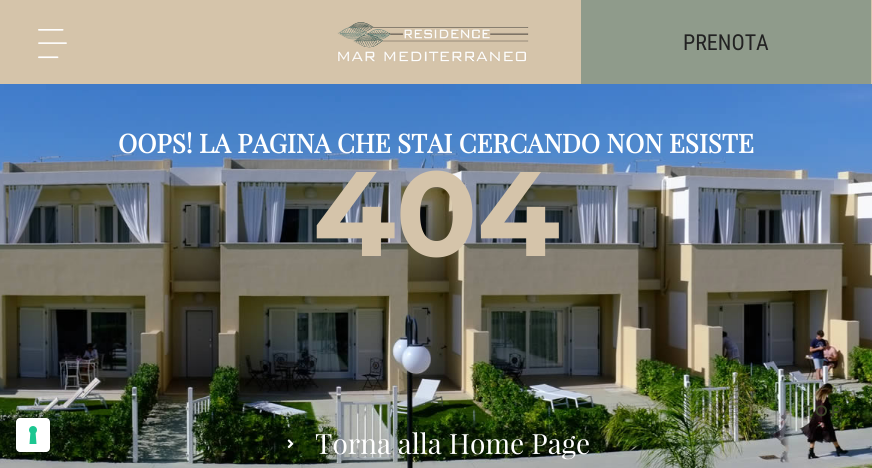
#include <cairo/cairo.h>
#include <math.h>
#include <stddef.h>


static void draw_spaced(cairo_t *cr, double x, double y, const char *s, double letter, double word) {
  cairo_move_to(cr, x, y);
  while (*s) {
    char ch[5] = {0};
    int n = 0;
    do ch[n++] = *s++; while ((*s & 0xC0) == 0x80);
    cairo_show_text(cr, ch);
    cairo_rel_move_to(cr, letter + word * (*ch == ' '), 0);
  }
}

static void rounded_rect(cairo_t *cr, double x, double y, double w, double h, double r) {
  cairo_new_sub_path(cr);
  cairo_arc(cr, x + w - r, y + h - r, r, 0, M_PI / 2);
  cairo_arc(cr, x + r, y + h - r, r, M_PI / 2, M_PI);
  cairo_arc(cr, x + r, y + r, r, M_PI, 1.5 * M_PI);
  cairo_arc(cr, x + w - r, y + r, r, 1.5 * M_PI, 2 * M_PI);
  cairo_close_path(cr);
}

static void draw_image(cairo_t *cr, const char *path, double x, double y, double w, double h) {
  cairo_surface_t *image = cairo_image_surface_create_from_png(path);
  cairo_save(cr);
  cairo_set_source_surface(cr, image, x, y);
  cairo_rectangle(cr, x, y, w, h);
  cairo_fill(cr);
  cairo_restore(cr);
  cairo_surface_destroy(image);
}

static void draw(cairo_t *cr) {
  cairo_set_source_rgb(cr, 1, 1, 1);
  cairo_paint(cr);
  cairo_set_source_rgb(cr, 213 / 255.0, 196 / 255.0, 170 / 255.0);
  cairo_rectangle(cr, 0, 0, 872, 84);
  cairo_fill(cr);
  draw_image(cr, "images/1.png", 38, 29, 29, 30);
  draw_image(cr, "images/2.png", 337, 21, 192, 41);
  cairo_set_source_rgb(cr, 143 / 255.0, 155 / 255.0, 139 / 255.0);
  cairo_rectangle(cr, 581, 0, 290, 84);
  cairo_fill(cr);
  draw_image(cr, "images/3.png", 0, 84, 872, 384);
  draw_image(cr, "images/4.png", 287, 439, 7, 10);
  rounded_rect(cr, 15.5, 417.5, 35, 35, 4.5);
  cairo_set_source_rgba(cr, 0, 0, 0, 0.15);
  cairo_set_line_width(cr, 1);
  cairo_stroke(cr);
  cairo_set_source_rgb(cr, 1, 1, 1);
  rounded_rect(cr, 16, 418, 34, 34, 4);
  cairo_fill(cr);
  draw_image(cr, "images/5.png", 29, 426, 8, 18);
  cairo_select_font_face(cr, "Roboto Condensed", CAIRO_FONT_SLANT_NORMAL, CAIRO_FONT_WEIGHT_NORMAL);
  cairo_set_font_size(cr, 22);
  cairo_set_source_rgb(cr, 34 / 255.0, 34 / 255.0, 34 / 255.0);
  cairo_move_to(cr, 683, 50);
  cairo_show_text(cr, "PRENOTA");
  cairo_select_font_face(cr, "Playfair Display", CAIRO_FONT_SLANT_NORMAL, CAIRO_FONT_WEIGHT_BOLD);
  cairo_set_font_size(cr, 26);
  cairo_set_source_rgb(cr, 1, 1, 1);
  cairo_move_to(cr, 118, 153);
  cairo_show_text(cr, "OOPS! LA PAGINA CHE STAI CERCANDO NON ESISTE");
  cairo_select_font_face(cr, "Montserrat", CAIRO_FONT_SLANT_NORMAL, CAIRO_FONT_WEIGHT_BOLD);
  cairo_set_font_size(cr, 120);
  cairo_set_source_rgb(cr, 213 / 255.0, 196 / 255.0, 170 / 255.0);
  cairo_move_to(cr, 313, 256);
  cairo_show_text(cr, "404");
  cairo_select_font_face(cr, "Playfair Display", CAIRO_FONT_SLANT_NORMAL, CAIRO_FONT_WEIGHT_NORMAL);
  cairo_set_font_size(cr, 28);
  cairo_set_source_rgb(cr, 1, 1, 1);
  cairo_move_to(cr, 315, 454);
  cairo_show_text(cr, "Torna alla Home Page");
  cairo_select_font_face(cr, "Montserrat SemiBold", CAIRO_FONT_SLANT_NORMAL, CAIRO_FONT_WEIGHT_NORMAL);
  cairo_set_font_size(cr, 15);
  cairo_set_source_rgb(cr, 58 / 255.0, 67 / 255.0, 40 / 255.0);
  draw_spaced(cr, 803, 416, "TOP", 3, 0);
}

int main(void) {
  cairo_surface_t *surface = cairo_image_surface_create(CAIRO_FORMAT_RGB24, 872, 468);
  cairo_t *cr = cairo_create(surface);
  cairo_font_options_t *options = cairo_font_options_create();
  cairo_font_options_set_hint_metrics(options, CAIRO_HINT_METRICS_OFF);
  cairo_font_options_set_hint_style(options, CAIRO_HINT_STYLE_NONE);
  cairo_set_font_options(cr, options);
  cairo_set_miter_limit(cr, 4);
  draw(cr);
  cairo_surface_write_to_png(surface, "out.png");
  cairo_font_options_destroy(options);
  cairo_destroy(cr);
  cairo_surface_destroy(surface);
  return 0;
}
